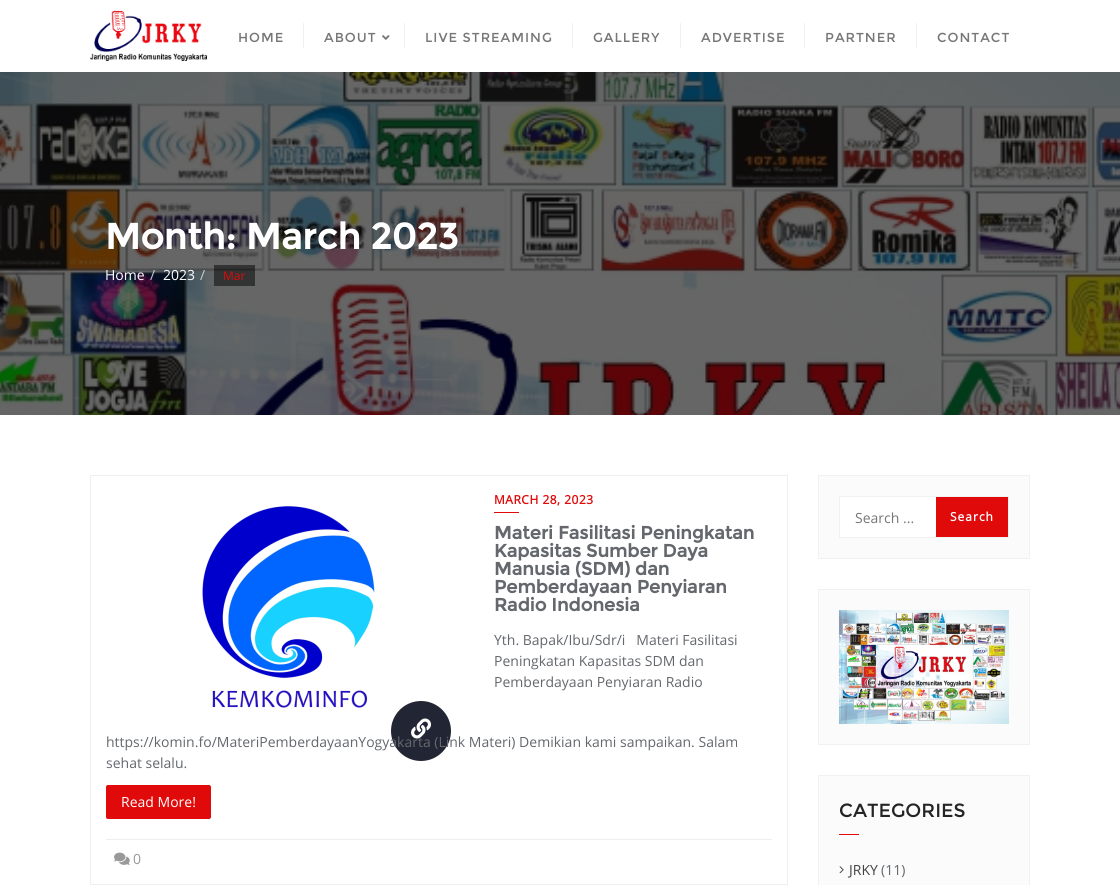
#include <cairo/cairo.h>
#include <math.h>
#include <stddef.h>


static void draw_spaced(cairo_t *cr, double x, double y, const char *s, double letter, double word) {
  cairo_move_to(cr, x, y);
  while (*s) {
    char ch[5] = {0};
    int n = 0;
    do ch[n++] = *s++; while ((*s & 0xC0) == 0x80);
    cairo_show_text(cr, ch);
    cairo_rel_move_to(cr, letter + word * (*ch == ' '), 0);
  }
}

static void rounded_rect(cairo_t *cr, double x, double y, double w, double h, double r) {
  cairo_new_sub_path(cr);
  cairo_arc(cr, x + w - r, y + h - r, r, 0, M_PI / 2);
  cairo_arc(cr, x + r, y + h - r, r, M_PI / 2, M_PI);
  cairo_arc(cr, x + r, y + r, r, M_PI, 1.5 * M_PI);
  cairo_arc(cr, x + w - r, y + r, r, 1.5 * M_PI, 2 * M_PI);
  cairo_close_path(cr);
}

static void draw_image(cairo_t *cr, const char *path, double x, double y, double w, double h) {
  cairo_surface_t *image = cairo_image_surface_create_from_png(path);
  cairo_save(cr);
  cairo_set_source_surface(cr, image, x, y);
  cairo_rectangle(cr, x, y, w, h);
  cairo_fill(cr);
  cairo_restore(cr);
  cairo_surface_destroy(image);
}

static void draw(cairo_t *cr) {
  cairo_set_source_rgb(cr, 1, 1, 1);
  cairo_paint(cr);
  draw_image(cr, "images/1.png", 90, 10, 117, 51);
  cairo_set_source_rgb(cr, 241 / 255.0, 241 / 255.0, 241 / 255.0);
  cairo_rectangle(cr, 303, 23, 1, 25);
  cairo_fill(cr);
  draw_image(cr, "images/2.png", 382, 35, 8, 5);
  cairo_rectangle(cr, 404, 23, 1, 25);
  cairo_fill(cr);
  cairo_rectangle(cr, 572, 23, 1, 25);
  cairo_fill(cr);
  cairo_rectangle(cr, 680, 23, 1, 25);
  cairo_fill(cr);
  cairo_rectangle(cr, 804, 23, 1, 25);
  cairo_fill(cr);
  cairo_rectangle(cr, 916, 23, 1, 25);
  cairo_fill(cr);
  draw_image(cr, "images/3.png", 0, 72, 1120, 343);
  cairo_set_source_rgba(cr, 0, 0, 0, 0.5);
  cairo_rectangle(cr, 214, 265, 41, 21);
  cairo_fill(cr);
  cairo_rectangle(cr, 90.5, 475.5, 697, 409);
  cairo_set_source_rgb(cr, 238 / 255.0, 238 / 255.0, 238 / 255.0);
  cairo_set_line_width(cr, 1);
  cairo_stroke(cr);
  cairo_set_source_rgb(cr, 224 / 255.0, 10 / 255.0, 10 / 255.0);
  cairo_rectangle(cr, 494, 512, 25, 1);
  cairo_fill(cr);
  rounded_rect(cr, 106, 785, 105, 34, 2);
  cairo_fill(cr);
  draw_image(cr, "images/4.png", 202, 506, 173, 202);
  cairo_set_source_rgb(cr, 34 / 255.0, 37 / 255.0, 52 / 255.0);
  cairo_arc(cr, 421, 731, 31.5, 0, 2 * M_PI);
  cairo_fill_preserve(cr);
  cairo_set_source_rgb(cr, 1, 1, 1);
  cairo_set_line_width(cr, 3);
  cairo_stroke(cr);
  draw_image(cr, "images/5.png", 411, 718, 20, 21);
  cairo_set_source_rgb(cr, 238 / 255.0, 238 / 255.0, 238 / 255.0);
  cairo_rectangle(cr, 106, 839, 666, 1);
  cairo_fill(cr);
  draw_image(cr, "images/6.png", 114, 852, 16, 13);
  cairo_set_source_rgb(cr, 251 / 255.0, 251 / 255.0, 251 / 255.0);
  cairo_rectangle(cr, 818.5, 475.5, 211, 83);
  cairo_fill_preserve(cr);
  cairo_set_source_rgb(cr, 241 / 255.0, 241 / 255.0, 241 / 255.0);
  cairo_set_line_width(cr, 1);
  cairo_stroke(cr);
  cairo_set_source_rgb(cr, 1, 1, 1);
  cairo_rectangle(cr, 840, 497, 96, 40);
  cairo_fill(cr);
  cairo_rectangle(cr, 839.5, 496.5, 169, 41);
  cairo_set_source_rgb(cr, 241 / 255.0, 241 / 255.0, 241 / 255.0);
  cairo_stroke(cr);
  cairo_set_source_rgb(cr, 224 / 255.0, 10 / 255.0, 10 / 255.0);
  cairo_rectangle(cr, 936, 497, 72, 40);
  cairo_fill(cr);
  cairo_set_source_rgb(cr, 251 / 255.0, 251 / 255.0, 251 / 255.0);
  cairo_rectangle(cr, 818.5, 589.5, 211, 155);
  cairo_fill_preserve(cr);
  cairo_set_source_rgb(cr, 241 / 255.0, 241 / 255.0, 241 / 255.0);
  cairo_stroke(cr);
  draw_image(cr, "images/7.png", 838, 610, 171, 114);
  cairo_set_source_rgb(cr, 251 / 255.0, 251 / 255.0, 251 / 255.0);
  cairo_rectangle(cr, 818.5, 775.5, 211, 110);
  cairo_fill_preserve(cr);
  cairo_set_source_rgb(cr, 241 / 255.0, 241 / 255.0, 241 / 255.0);
  cairo_stroke(cr);
  cairo_set_source_rgb(cr, 224 / 255.0, 10 / 255.0, 10 / 255.0);
  cairo_rectangle(cr, 839, 834, 20, 1);
  cairo_fill(cr);
  draw_image(cr, "images/8.png", 839, 866, 5, 8);
  cairo_select_font_face(cr, "Montserrat", CAIRO_FONT_SLANT_NORMAL, CAIRO_FONT_WEIGHT_NORMAL);
  cairo_set_font_size(cr, 13);
  cairo_set_source_rgb(cr, 119 / 255.0, 119 / 255.0, 119 / 255.0);
  draw_spaced(cr, 238, 42, "HOME", 1, 0);
  draw_spaced(cr, 324, 42, "ABOUT", 1, 0);
  draw_spaced(cr, 425, 42, "LIVE STREAMING", 1, 0);
  draw_spaced(cr, 593, 42, "GALLERY", 1, 0);
  draw_spaced(cr, 701, 42, "ADVERTISE", 1, 0);
  draw_spaced(cr, 825, 42, "PARTNER", 1, 0);
  draw_spaced(cr, 937, 42, "CONTACT", 1, 0);
  cairo_select_font_face(cr, "Montserrat", CAIRO_FONT_SLANT_NORMAL, CAIRO_FONT_WEIGHT_BOLD);
  cairo_set_font_size(cr, 36);
  cairo_set_source_rgb(cr, 1, 1, 1);
  cairo_move_to(cr, 105, 249);
  cairo_show_text(cr, "Month: March 2023");
  cairo_select_font_face(cr, "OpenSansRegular", CAIRO_FONT_SLANT_NORMAL, CAIRO_FONT_WEIGHT_NORMAL);
  cairo_set_font_size(cr, 14);
  cairo_move_to(cr, 105, 280);
  cairo_show_text(cr, "Home");
  cairo_set_source_rgb(cr, 204 / 255.0, 204 / 255.0, 204 / 255.0);
  cairo_move_to(cr, 150, 280);
  cairo_show_text(cr, "/");
  cairo_set_source_rgb(cr, 1, 1, 1);
  cairo_move_to(cr, 163, 280);
  cairo_show_text(cr, "2023");
  cairo_set_source_rgb(cr, 204 / 255.0, 204 / 255.0, 204 / 255.0);
  cairo_move_to(cr, 200, 280);
  cairo_show_text(cr, "/");
  cairo_set_font_size(cr, 12);
  cairo_set_source_rgb(cr, 224 / 255.0, 10 / 255.0, 10 / 255.0);
  cairo_move_to(cr, 223, 280);
  cairo_show_text(cr, "Mar");
  cairo_select_font_face(cr, "OpenSansRegular", CAIRO_FONT_SLANT_NORMAL, CAIRO_FONT_WEIGHT_BOLD);
  draw_spaced(cr, 494, 504, "MARCH 28, 2023", 0.5, 0);
  cairo_select_font_face(cr, "Montserrat", CAIRO_FONT_SLANT_NORMAL, CAIRO_FONT_WEIGHT_BOLD);
  cairo_set_font_size(cr, 18);
  cairo_set_source_rgb(cr, 100 / 255.0, 104 / 255.0, 109 / 255.0);
  cairo_move_to(cr, 494, 539);
  cairo_show_text(cr, "Materi Fasilitasi Peningkatan");
  cairo_move_to(cr, 494, 557);
  cairo_show_text(cr, "Kapasitas Sumber Daya");
  cairo_move_to(cr, 494, 575);
  cairo_show_text(cr, "Manusia (SDM) dan");
  cairo_move_to(cr, 494, 593);
  cairo_show_text(cr, "Pemberdayaan Penyiaran");
  cairo_move_to(cr, 494, 611);
  cairo_show_text(cr, "Radio Indonesia");
  cairo_select_font_face(cr, "OpenSansRegular", CAIRO_FONT_SLANT_NORMAL, CAIRO_FONT_WEIGHT_NORMAL);
  cairo_set_font_size(cr, 14);
  cairo_move_to(cr, 494, 645);
  cairo_show_text(cr, "Yth. Bapak/Ibu/Sdr/i   Materi Fasilitasi");
  cairo_move_to(cr, 494, 666);
  cairo_show_text(cr, "Peningkatan Kapasitas SDM dan");
  cairo_move_to(cr, 494, 687);
  cairo_show_text(cr, "Pemberdayaan Penyiaran Radio");
  cairo_move_to(cr, 106, 747);
  cairo_show_text(cr, "https://komin.fo/MateriPemberdayaanYogyakarta (Link Materi) Demikian kami sampaikan. Salam");
  cairo_move_to(cr, 106, 768);
  cairo_show_text(cr, "sehat selalu.");
  cairo_set_source_rgb(cr, 1, 1, 1);
  cairo_move_to(cr, 121, 807);
  cairo_show_text(cr, "Read More!");
  cairo_set_source_rgb(cr, 153 / 255.0, 153 / 255.0, 153 / 255.0);
  cairo_move_to(cr, 133, 864);
  cairo_show_text(cr, "0");
  cairo_set_source_rgb(cr, 119 / 255.0, 119 / 255.0, 119 / 255.0);
  cairo_move_to(cr, 855, 523);
  cairo_show_text(cr, "Search ...");
  cairo_select_font_face(cr, "OpenSansRegular", CAIRO_FONT_SLANT_NORMAL, CAIRO_FONT_WEIGHT_BOLD);
  cairo_set_font_size(cr, 12);
  cairo_set_source_rgb(cr, 1, 1, 1);
  draw_spaced(cr, 950, 521, "Search", 1, 0);
  cairo_select_font_face(cr, "Montserrat", CAIRO_FONT_SLANT_NORMAL, CAIRO_FONT_WEIGHT_NORMAL);
  cairo_set_font_size(cr, 19);
  cairo_set_source_rgb(cr, 36 / 255.0, 36 / 255.0, 36 / 255.0);
  cairo_move_to(cr, 839, 817);
  cairo_show_text(cr, "CATEGORIES");
  cairo_select_font_face(cr, "OpenSansRegular", CAIRO_FONT_SLANT_NORMAL, CAIRO_FONT_WEIGHT_NORMAL);
  cairo_set_font_size(cr, 14);
  cairo_set_source_rgb(cr, 67 / 255.0, 67 / 255.0, 67 / 255.0);
  cairo_move_to(cr, 849, 875);
  cairo_show_text(cr, "JRKY");
  cairo_set_source_rgb(cr, 100 / 255.0, 104 / 255.0, 109 / 255.0);
  cairo_move_to(cr, 881, 875);
  cairo_show_text(cr, "(11)");
}

int main(void) {
  cairo_surface_t *surface = cairo_image_surface_create(CAIRO_FORMAT_RGB24, 1120, 885);
  cairo_t *cr = cairo_create(surface);
  cairo_font_options_t *options = cairo_font_options_create();
  cairo_font_options_set_hint_metrics(options, CAIRO_HINT_METRICS_OFF);
  cairo_font_options_set_hint_style(options, CAIRO_HINT_STYLE_NONE);
  cairo_set_font_options(cr, options);
  cairo_set_miter_limit(cr, 4);
  draw(cr);
  cairo_surface_write_to_png(surface, "out.png");
  cairo_font_options_destroy(options);
  cairo_destroy(cr);
  cairo_surface_destroy(surface);
  return 0;
}
